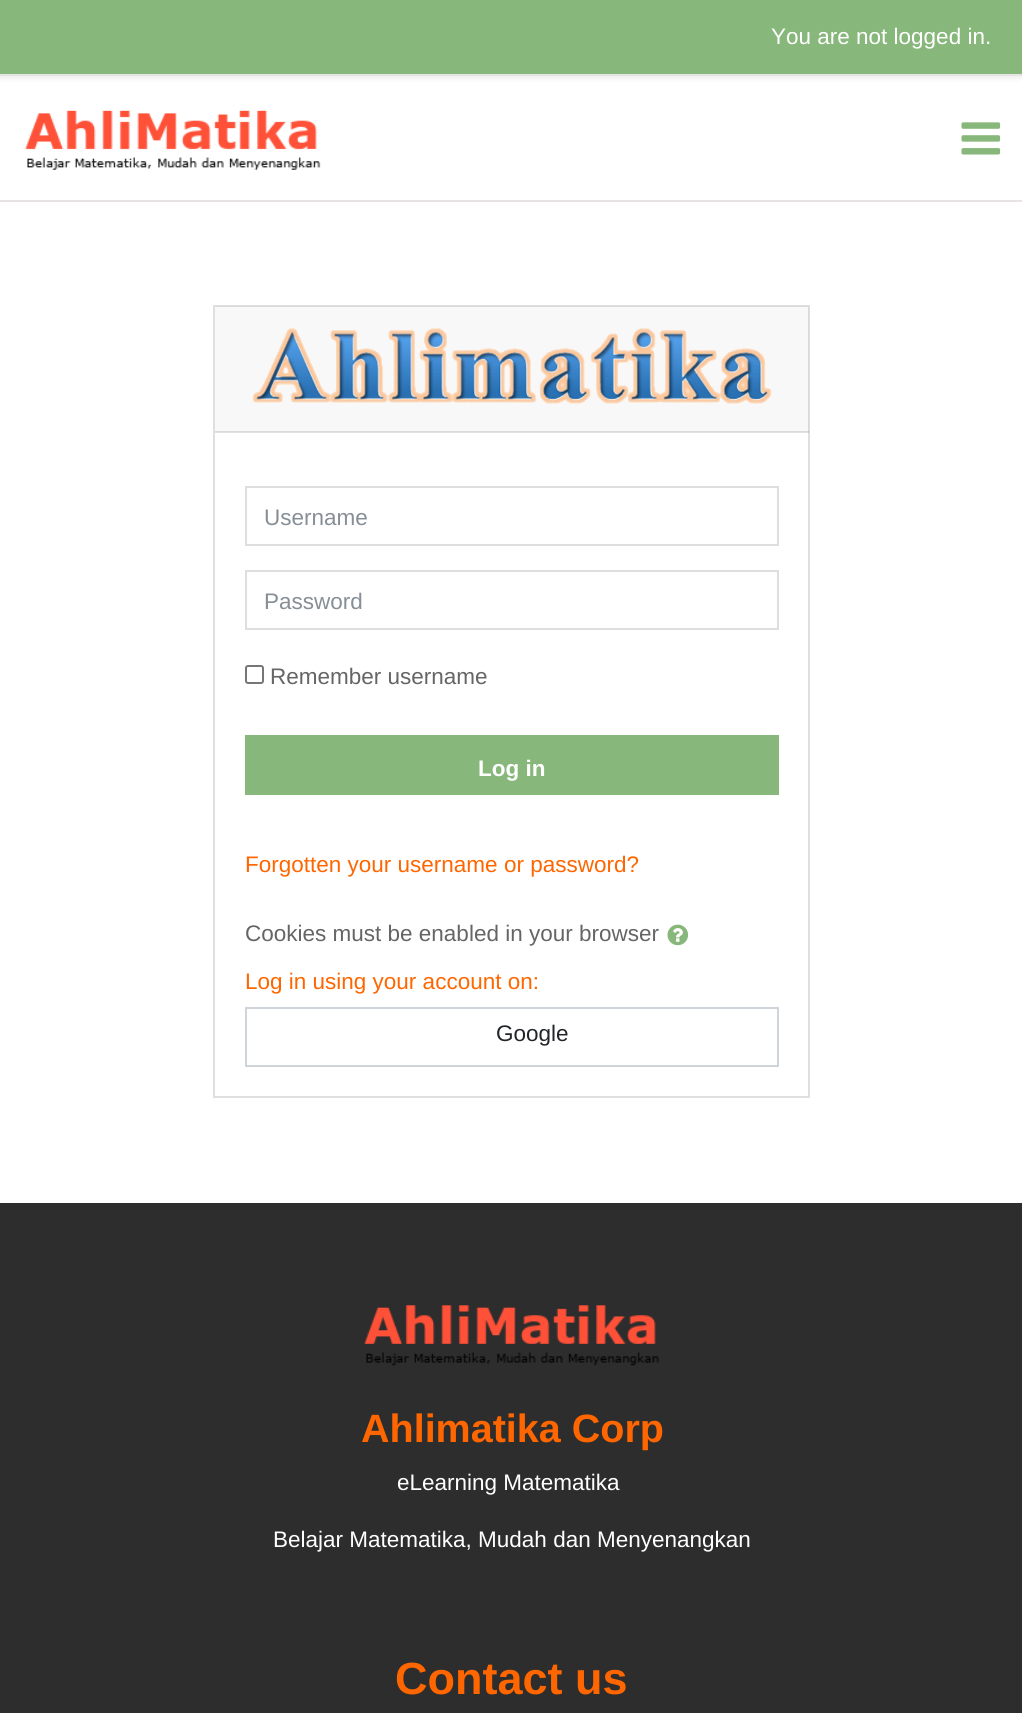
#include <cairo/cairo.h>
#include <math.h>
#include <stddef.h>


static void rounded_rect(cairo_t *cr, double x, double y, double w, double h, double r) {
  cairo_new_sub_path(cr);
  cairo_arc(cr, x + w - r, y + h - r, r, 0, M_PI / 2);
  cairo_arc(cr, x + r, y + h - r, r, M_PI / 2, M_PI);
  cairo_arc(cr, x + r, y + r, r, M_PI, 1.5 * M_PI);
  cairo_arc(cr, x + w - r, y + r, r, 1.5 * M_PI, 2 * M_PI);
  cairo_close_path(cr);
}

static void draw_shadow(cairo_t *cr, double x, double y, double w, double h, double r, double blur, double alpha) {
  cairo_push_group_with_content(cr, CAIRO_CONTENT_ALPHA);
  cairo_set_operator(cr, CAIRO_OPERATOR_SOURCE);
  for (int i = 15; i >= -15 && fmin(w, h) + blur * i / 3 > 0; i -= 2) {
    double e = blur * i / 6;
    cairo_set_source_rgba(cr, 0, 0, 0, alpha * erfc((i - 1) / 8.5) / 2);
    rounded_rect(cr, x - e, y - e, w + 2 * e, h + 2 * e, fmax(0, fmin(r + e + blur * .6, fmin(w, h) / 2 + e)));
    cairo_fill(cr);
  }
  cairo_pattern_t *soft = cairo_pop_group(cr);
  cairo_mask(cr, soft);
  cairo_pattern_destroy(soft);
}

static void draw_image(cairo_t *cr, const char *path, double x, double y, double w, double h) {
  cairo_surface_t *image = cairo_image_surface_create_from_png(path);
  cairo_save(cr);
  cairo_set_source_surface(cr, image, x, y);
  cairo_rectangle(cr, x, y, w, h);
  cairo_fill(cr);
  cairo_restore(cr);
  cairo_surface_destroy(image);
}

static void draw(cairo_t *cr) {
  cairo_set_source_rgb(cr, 1, 1, 1);
  cairo_paint(cr);
  cairo_set_source_rgb(cr, 0, 0, 0);
  draw_shadow(cr, 0, 3, 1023, 75, 0, 3, 0.08);
  cairo_set_source_rgb(cr, 136 / 255.0, 183 / 255.0, 123 / 255.0);
  cairo_rectangle(cr, 0, 0, 1022, 74);
  cairo_fill(cr);
  cairo_set_source_rgb(cr, 232 / 255.0, 227 / 255.0, 227 / 255.0);
  cairo_rectangle(cr, 0, 74, 1022, 2);
  cairo_fill(cr);
  cairo_rectangle(cr, 0, 200, 1022, 2);
  cairo_fill(cr);
  draw_image(cr, "images/1.png", 25, 110, 296, 60);
  draw_image(cr, "images/2.png", 961, 122, 40, 33);
  cairo_rectangle(cr, 214, 306, 595, 791);
  cairo_set_source_rgb(cr, 223 / 255.0, 223 / 255.0, 223 / 255.0);
  cairo_stroke(cr);
  cairo_set_source_rgba(cr, 0, 0, 0, 0.03);
  cairo_rectangle(cr, 215, 306, 594, 126);
  cairo_fill(cr);
  cairo_set_source_rgba(cr, 0, 0, 0, 0.12);
  cairo_rectangle(cr, 215, 431, 594, 2);
  cairo_fill(cr);
  draw_image(cr, "images/3.png", 253, 328, 519, 76);
  cairo_rectangle(cr, 246, 487, 532, 58);
  cairo_set_source_rgb(cr, 222 / 255.0, 222 / 255.0, 222 / 255.0);
  cairo_stroke(cr);
  cairo_rectangle(cr, 246, 571, 532, 58);
  cairo_stroke(cr);
  rounded_rect(cr, 246, 666, 17, 17, 2);
  cairo_set_source_rgb(cr, 118 / 255.0, 118 / 255.0, 118 / 255.0);
  cairo_stroke(cr);
  cairo_set_source_rgb(cr, 136 / 255.0, 183 / 255.0, 123 / 255.0);
  cairo_rectangle(cr, 245, 735, 534, 60);
  cairo_fill(cr);
  draw_image(cr, "images/4.png", 667, 924, 22, 22);
  cairo_rectangle(cr, 246, 1008, 532, 58);
  cairo_set_source_rgb(cr, 206 / 255.0, 212 / 255.0, 218 / 255.0);
  cairo_stroke(cr);
  cairo_set_source_rgb(cr, 45 / 255.0, 45 / 255.0, 45 / 255.0);
  cairo_rectangle(cr, 0, 1203, 1022, 510);
  cairo_fill(cr);
  draw_image(cr, "images/5.png", 364, 1305, 295, 61);
  cairo_select_font_face(cr, "Liberation Sans", CAIRO_FONT_SLANT_NORMAL, CAIRO_FONT_WEIGHT_NORMAL);
  cairo_set_font_size(cr, 22.5);
  cairo_set_source_rgb(cr, 1, 1, 1);
  cairo_move_to(cr, 771, 44);
  cairo_show_text(cr, "You are not logged in.");
  cairo_set_source_rgb(cr, 134 / 255.0, 142 / 255.0, 150 / 255.0);
  cairo_move_to(cr, 264, 525);
  cairo_show_text(cr, "Username");
  cairo_move_to(cr, 264, 609);
  cairo_show_text(cr, "Password");
  cairo_set_source_rgb(cr, 101 / 255.0, 101 / 255.0, 101 / 255.0);
  cairo_move_to(cr, 270, 684);
  cairo_show_text(cr, "Remember username");
  cairo_select_font_face(cr, "Liberation Sans", CAIRO_FONT_SLANT_NORMAL, CAIRO_FONT_WEIGHT_BOLD);
  cairo_set_source_rgb(cr, 1, 1, 1);
  cairo_move_to(cr, 478, 776);
  cairo_show_text(cr, "Log in");
  cairo_select_font_face(cr, "Liberation Sans", CAIRO_FONT_SLANT_NORMAL, CAIRO_FONT_WEIGHT_NORMAL);
  cairo_set_source_rgb(cr, 1, 102 / 255.0, 0);
  cairo_move_to(cr, 245, 872);
  cairo_show_text(cr, "Forgotten your username or password?");
  cairo_set_source_rgb(cr, 101 / 255.0, 101 / 255.0, 101 / 255.0);
  cairo_move_to(cr, 245, 941);
  cairo_show_text(cr, "Cookies must be enabled in your browser");
  cairo_set_source_rgb(cr, 1, 102 / 255.0, 0);
  cairo_move_to(cr, 245, 989);
  cairo_show_text(cr, "Log in using your account on:");
  cairo_set_source_rgb(cr, 33 / 255.0, 37 / 255.0, 41 / 255.0);
  cairo_move_to(cr, 496, 1041);
  cairo_show_text(cr, "Google");
  cairo_select_font_face(cr, "Liberation Sans", CAIRO_FONT_SLANT_NORMAL, CAIRO_FONT_WEIGHT_BOLD);
  cairo_set_font_size(cr, 39.5);
  cairo_set_source_rgb(cr, 1, 102 / 255.0, 0);
  cairo_move_to(cr, 361, 1442);
  cairo_show_text(cr, "Ahlimatika Corp");
  cairo_select_font_face(cr, "Liberation Sans", CAIRO_FONT_SLANT_NORMAL, CAIRO_FONT_WEIGHT_NORMAL);
  cairo_set_font_size(cr, 22.5);
  cairo_set_source_rgb(cr, 1, 1, 1);
  cairo_move_to(cr, 397, 1490);
  cairo_show_text(cr, "eLearning Matematika");
  cairo_move_to(cr, 273, 1547);
  cairo_show_text(cr, "Belajar Matematika, Mudah dan Menyenangkan");
  cairo_select_font_face(cr, "Liberation Sans", CAIRO_FONT_SLANT_NORMAL, CAIRO_FONT_WEIGHT_BOLD);
  cairo_set_font_size(cr, 45);
  cairo_set_source_rgb(cr, 1, 102 / 255.0, 0);
  cairo_move_to(cr, 395, 1694);
  cairo_show_text(cr, "Contact us");
}

int main(void) {
  cairo_surface_t *surface = cairo_image_surface_create(CAIRO_FORMAT_RGB24, 1022, 1713);
  cairo_t *cr = cairo_create(surface);
  cairo_font_options_t *options = cairo_font_options_create();
  cairo_font_options_set_hint_metrics(options, CAIRO_HINT_METRICS_OFF);
  cairo_font_options_set_hint_style(options, CAIRO_HINT_STYLE_NONE);
  cairo_set_font_options(cr, options);
  cairo_set_miter_limit(cr, 4);
  draw(cr);
  cairo_surface_write_to_png(surface, "out.png");
  cairo_font_options_destroy(options);
  cairo_destroy(cr);
  cairo_surface_destroy(surface);
  return 0;
}
